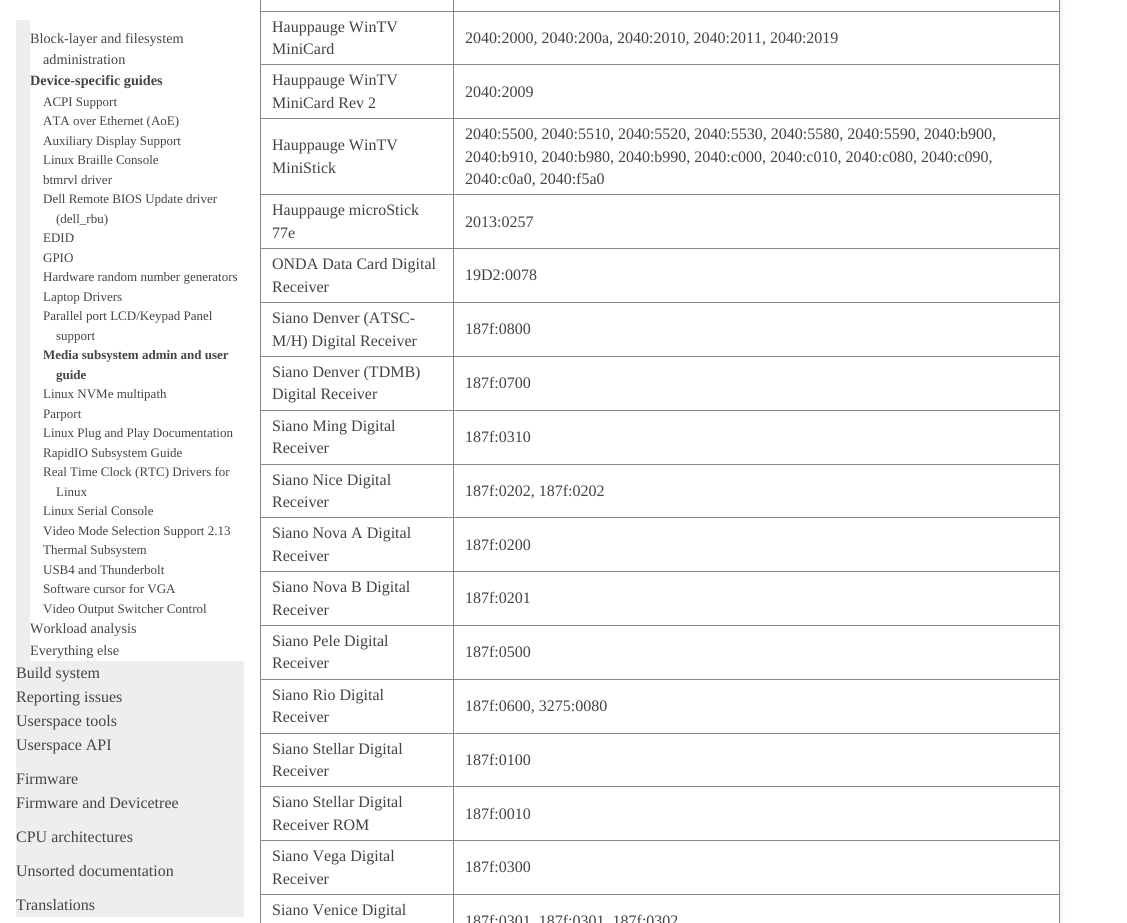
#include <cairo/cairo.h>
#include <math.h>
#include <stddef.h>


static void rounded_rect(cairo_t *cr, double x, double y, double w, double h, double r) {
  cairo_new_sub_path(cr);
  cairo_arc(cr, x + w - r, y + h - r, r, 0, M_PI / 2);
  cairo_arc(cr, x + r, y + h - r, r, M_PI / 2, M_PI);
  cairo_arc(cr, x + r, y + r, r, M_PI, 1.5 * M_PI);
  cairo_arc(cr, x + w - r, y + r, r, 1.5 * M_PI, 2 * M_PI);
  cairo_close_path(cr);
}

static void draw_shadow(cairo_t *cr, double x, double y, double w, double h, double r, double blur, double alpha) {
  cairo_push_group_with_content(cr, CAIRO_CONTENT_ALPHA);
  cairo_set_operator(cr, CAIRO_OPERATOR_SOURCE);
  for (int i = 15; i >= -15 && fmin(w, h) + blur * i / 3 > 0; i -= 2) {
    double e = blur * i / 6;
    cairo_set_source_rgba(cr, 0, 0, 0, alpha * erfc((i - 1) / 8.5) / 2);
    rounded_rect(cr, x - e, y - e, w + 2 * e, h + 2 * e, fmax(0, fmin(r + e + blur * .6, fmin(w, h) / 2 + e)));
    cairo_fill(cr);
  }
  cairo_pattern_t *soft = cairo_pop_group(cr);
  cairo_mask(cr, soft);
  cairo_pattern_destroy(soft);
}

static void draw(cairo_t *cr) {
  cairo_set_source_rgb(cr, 1, 1, 1);
  cairo_paint(cr);
  cairo_set_source_rgb(cr, 238 / 255.0, 238 / 255.0, 238 / 255.0);
  cairo_rectangle(cr, 16, 20, 228, 897);
  cairo_fill(cr);
  cairo_set_source_rgb(cr, 1, 1, 1);
  cairo_rectangle(cr, 30, 20, 214, 641);
  cairo_fill(cr);
  cairo_save(cr);
  cairo_set_fill_rule(cr, CAIRO_FILL_RULE_EVEN_ODD);
  cairo_new_path(cr);
  cairo_move_to(cr, 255, 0);
  cairo_line_to(cr, 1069, 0);
  cairo_line_to(cr, 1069, 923);
  cairo_line_to(cr, 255, 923);
  cairo_close_path(cr);
  cairo_move_to(cr, 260, -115);
  cairo_line_to(cr, 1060, -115);
  cairo_line_to(cr, 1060, 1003);
  cairo_line_to(cr, 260, 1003);
  cairo_close_path(cr);
  cairo_clip(cr);
  cairo_set_source_rgb(cr, 238 / 255.0, 238 / 255.0, 238 / 255.0);
  draw_shadow(cr, 262, -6, 800, 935, 0, 2, 1);
  cairo_restore(cr);
  cairo_set_source_rgb(cr, 136 / 255.0, 136 / 255.0, 136 / 255.0);
  cairo_rectangle(cr, 1059, 0, 1, 923);
  cairo_fill(cr);
  cairo_rectangle(cr, 260, 0, 1, 923);
  cairo_fill(cr);
  cairo_rectangle(cr, 453, 11, 607, 1);
  cairo_fill(cr);
  cairo_rectangle(cr, 453, 64, 607, 1);
  cairo_fill(cr);
  cairo_rectangle(cr, 453, 118, 607, 1);
  cairo_fill(cr);
  cairo_rectangle(cr, 453, 194, 607, 1);
  cairo_fill(cr);
  cairo_rectangle(cr, 453, 248, 607, 1);
  cairo_fill(cr);
  cairo_rectangle(cr, 453, 302, 607, 1);
  cairo_fill(cr);
  cairo_rectangle(cr, 453, 356, 607, 1);
  cairo_fill(cr);
  cairo_rectangle(cr, 453, 410, 607, 1);
  cairo_fill(cr);
  cairo_rectangle(cr, 453, 464, 607, 1);
  cairo_fill(cr);
  cairo_rectangle(cr, 453, 517, 607, 1);
  cairo_fill(cr);
  cairo_rectangle(cr, 453, 571, 607, 1);
  cairo_fill(cr);
  cairo_rectangle(cr, 453, 625, 607, 1);
  cairo_fill(cr);
  cairo_rectangle(cr, 453, 679, 607, 1);
  cairo_fill(cr);
  cairo_rectangle(cr, 453, 733, 607, 1);
  cairo_fill(cr);
  cairo_rectangle(cr, 453, 786, 607, 1);
  cairo_fill(cr);
  cairo_rectangle(cr, 453, 840, 607, 1);
  cairo_fill(cr);
  cairo_rectangle(cr, 453, 894, 607, 1);
  cairo_fill(cr);
  cairo_rectangle(cr, 453, 894, 1, 29);
  cairo_fill(cr);
  cairo_rectangle(cr, 260, 894, 194, 1);
  cairo_fill(cr);
  cairo_rectangle(cr, 453, 840, 1, 55);
  cairo_fill(cr);
  cairo_rectangle(cr, 260, 840, 194, 1);
  cairo_fill(cr);
  cairo_rectangle(cr, 453, 786, 1, 55);
  cairo_fill(cr);
  cairo_rectangle(cr, 260, 786, 194, 1);
  cairo_fill(cr);
  cairo_rectangle(cr, 453, 733, 1, 54);
  cairo_fill(cr);
  cairo_rectangle(cr, 260, 733, 194, 1);
  cairo_fill(cr);
  cairo_rectangle(cr, 453, 679, 1, 55);
  cairo_fill(cr);
  cairo_rectangle(cr, 260, 679, 194, 1);
  cairo_fill(cr);
  cairo_rectangle(cr, 453, 625, 1, 55);
  cairo_fill(cr);
  cairo_rectangle(cr, 260, 625, 194, 1);
  cairo_fill(cr);
  cairo_rectangle(cr, 453, 571, 1, 55);
  cairo_fill(cr);
  cairo_rectangle(cr, 260, 571, 194, 1);
  cairo_fill(cr);
  cairo_rectangle(cr, 453, 517, 1, 55);
  cairo_fill(cr);
  cairo_rectangle(cr, 260, 517, 194, 1);
  cairo_fill(cr);
  cairo_rectangle(cr, 453, 464, 1, 54);
  cairo_fill(cr);
  cairo_rectangle(cr, 260, 464, 194, 1);
  cairo_fill(cr);
  cairo_rectangle(cr, 453, 410, 1, 55);
  cairo_fill(cr);
  cairo_rectangle(cr, 260, 410, 194, 1);
  cairo_fill(cr);
  cairo_rectangle(cr, 453, 356, 1, 55);
  cairo_fill(cr);
  cairo_rectangle(cr, 260, 356, 194, 1);
  cairo_fill(cr);
  cairo_rectangle(cr, 453, 302, 1, 55);
  cairo_fill(cr);
  cairo_rectangle(cr, 260, 302, 194, 1);
  cairo_fill(cr);
  cairo_rectangle(cr, 453, 248, 1, 55);
  cairo_fill(cr);
  cairo_rectangle(cr, 260, 248, 194, 1);
  cairo_fill(cr);
  cairo_rectangle(cr, 453, 194, 1, 55);
  cairo_fill(cr);
  cairo_rectangle(cr, 260, 194, 194, 1);
  cairo_fill(cr);
  cairo_rectangle(cr, 453, 118, 1, 77);
  cairo_fill(cr);
  cairo_rectangle(cr, 260, 118, 194, 1);
  cairo_fill(cr);
  cairo_rectangle(cr, 453, 64, 1, 55);
  cairo_fill(cr);
  cairo_rectangle(cr, 260, 64, 194, 1);
  cairo_fill(cr);
  cairo_rectangle(cr, 453, 11, 1, 54);
  cairo_fill(cr);
  cairo_rectangle(cr, 260, 11, 194, 1);
  cairo_fill(cr);
  cairo_rectangle(cr, 453, 0, 1, 12);
  cairo_fill(cr);
  cairo_select_font_face(cr, "Liberation Serif", CAIRO_FONT_SLANT_NORMAL, CAIRO_FONT_WEIGHT_NORMAL);
  cairo_set_font_size(cr, 14.25);
  cairo_set_source_rgb(cr, 68 / 255.0, 68 / 255.0, 68 / 255.0);
  cairo_move_to(cr, 30, 43);
  cairo_show_text(cr, "Block-layer and filesystem");
  cairo_move_to(cr, 43, 64);
  cairo_show_text(cr, "administration");
  cairo_select_font_face(cr, "Liberation Serif", CAIRO_FONT_SLANT_NORMAL, CAIRO_FONT_WEIGHT_BOLD);
  cairo_move_to(cr, 30, 85);
  cairo_show_text(cr, "Device-specific guides");
  cairo_select_font_face(cr, "Liberation Serif", CAIRO_FONT_SLANT_NORMAL, CAIRO_FONT_WEIGHT_NORMAL);
  cairo_set_font_size(cr, 13);
  cairo_move_to(cr, 43, 106);
  cairo_show_text(cr, "ACPI Support");
  cairo_move_to(cr, 43, 125);
  cairo_show_text(cr, "ATA over Ethernet (AoE)");
  cairo_move_to(cr, 43, 145);
  cairo_show_text(cr, "Auxiliary Display Support");
  cairo_move_to(cr, 43, 164);
  cairo_show_text(cr, "Linux Braille Console");
  cairo_move_to(cr, 43, 184);
  cairo_show_text(cr, "btmrvl driver");
  cairo_move_to(cr, 43, 203);
  cairo_show_text(cr, "Dell Remote BIOS Update driver");
  cairo_move_to(cr, 56, 223);
  cairo_show_text(cr, "(dell_rbu)");
  cairo_move_to(cr, 43, 242);
  cairo_show_text(cr, "EDID");
  cairo_move_to(cr, 43, 262);
  cairo_show_text(cr, "GPIO");
  cairo_move_to(cr, 43, 281);
  cairo_show_text(cr, "Hardware random number generators");
  cairo_move_to(cr, 43, 301);
  cairo_show_text(cr, "Laptop Drivers");
  cairo_move_to(cr, 43, 320);
  cairo_show_text(cr, "Parallel port LCD/Keypad Panel");
  cairo_move_to(cr, 56, 340);
  cairo_show_text(cr, "support");
  cairo_select_font_face(cr, "Liberation Serif", CAIRO_FONT_SLANT_NORMAL, CAIRO_FONT_WEIGHT_BOLD);
  cairo_move_to(cr, 43, 359);
  cairo_show_text(cr, "Media subsystem admin and user");
  cairo_move_to(cr, 56, 379);
  cairo_show_text(cr, "guide");
  cairo_select_font_face(cr, "Liberation Serif", CAIRO_FONT_SLANT_NORMAL, CAIRO_FONT_WEIGHT_NORMAL);
  cairo_move_to(cr, 43, 398);
  cairo_show_text(cr, "Linux NVMe multipath");
  cairo_move_to(cr, 43, 418);
  cairo_show_text(cr, "Parport");
  cairo_move_to(cr, 43, 437);
  cairo_show_text(cr, "Linux Plug and Play Documentation");
  cairo_move_to(cr, 43, 457);
  cairo_show_text(cr, "RapidIO Subsystem Guide");
  cairo_move_to(cr, 43, 476);
  cairo_show_text(cr, "Real Time Clock (RTC) Drivers for");
  cairo_move_to(cr, 56, 496);
  cairo_show_text(cr, "Linux");
  cairo_move_to(cr, 43, 515);
  cairo_show_text(cr, "Linux Serial Console");
  cairo_move_to(cr, 43, 535);
  cairo_show_text(cr, "Video Mode Selection Support 2.13");
  cairo_move_to(cr, 43, 554);
  cairo_show_text(cr, "Thermal Subsystem");
  cairo_move_to(cr, 43, 574);
  cairo_show_text(cr, "USB4 and Thunderbolt");
  cairo_move_to(cr, 43, 593);
  cairo_show_text(cr, "Software cursor for VGA");
  cairo_move_to(cr, 43, 613);
  cairo_show_text(cr, "Video Output Switcher Control");
  cairo_set_font_size(cr, 14.25);
  cairo_move_to(cr, 30, 633);
  cairo_show_text(cr, "Workload analysis");
  cairo_move_to(cr, 30, 655);
  cairo_show_text(cr, "Everything else");
  cairo_set_font_size(cr, 16);
  cairo_move_to(cr, 16, 678);
  cairo_show_text(cr, "Build system");
  cairo_move_to(cr, 16, 702);
  cairo_show_text(cr, "Reporting issues");
  cairo_move_to(cr, 16, 726);
  cairo_show_text(cr, "Userspace tools");
  cairo_move_to(cr, 16, 750);
  cairo_show_text(cr, "Userspace API");
  cairo_move_to(cr, 16, 784);
  cairo_show_text(cr, "Firmware");
  cairo_move_to(cr, 16, 808);
  cairo_show_text(cr, "Firmware and Devicetree");
  cairo_move_to(cr, 16, 842);
  cairo_show_text(cr, "CPU architectures");
  cairo_move_to(cr, 16, 876);
  cairo_show_text(cr, "Unsorted documentation");
  cairo_move_to(cr, 16, 910);
  cairo_show_text(cr, "Translations");
  cairo_set_source_rgb(cr, 62 / 255.0, 67 / 255.0, 73 / 255.0);
  cairo_move_to(cr, 272, 32);
  cairo_show_text(cr, "Hauppauge WinTV");
  cairo_move_to(cr, 272, 54);
  cairo_show_text(cr, "MiniCard");
  cairo_move_to(cr, 465, 43);
  cairo_show_text(cr, "2040:2000, 2040:200a, 2040:2010, 2040:2011, 2040:2019");
  cairo_move_to(cr, 272, 85);
  cairo_show_text(cr, "Hauppauge WinTV");
  cairo_move_to(cr, 272, 108);
  cairo_show_text(cr, "MiniCard Rev 2");
  cairo_move_to(cr, 465, 97);
  cairo_show_text(cr, "2040:2009");
  cairo_move_to(cr, 272, 150);
  cairo_show_text(cr, "Hauppauge WinTV");
  cairo_move_to(cr, 272, 173);
  cairo_show_text(cr, "MiniStick");
  cairo_move_to(cr, 465, 139);
  cairo_show_text(cr, "2040:5500, 2040:5510, 2040:5520, 2040:5530, 2040:5580, 2040:5590, 2040:b900,");
  cairo_move_to(cr, 465, 162);
  cairo_show_text(cr, "2040:b910, 2040:b980, 2040:b990, 2040:c000, 2040:c010, 2040:c080, 2040:c090,");
  cairo_move_to(cr, 465, 184);
  cairo_show_text(cr, "2040:c0a0, 2040:f5a0");
  cairo_move_to(cr, 272, 215);
  cairo_show_text(cr, "Hauppauge microStick");
  cairo_move_to(cr, 272, 238);
  cairo_show_text(cr, "77e");
  cairo_move_to(cr, 465, 227);
  cairo_show_text(cr, "2013:0257");
  cairo_move_to(cr, 272, 269);
  cairo_show_text(cr, "ONDA Data Card Digital");
  cairo_move_to(cr, 272, 292);
  cairo_show_text(cr, "Receiver");
  cairo_move_to(cr, 465, 280);
  cairo_show_text(cr, "19D2:0078");
  cairo_move_to(cr, 272, 323);
  cairo_show_text(cr, "Siano Denver (ATSC-");
  cairo_move_to(cr, 272, 346);
  cairo_show_text(cr, "M/H) Digital Receiver");
  cairo_move_to(cr, 465, 334);
  cairo_show_text(cr, "187f:0800");
  cairo_move_to(cr, 272, 377);
  cairo_show_text(cr, "Siano Denver (TDMB)");
  cairo_move_to(cr, 272, 399);
  cairo_show_text(cr, "Digital Receiver");
  cairo_move_to(cr, 465, 388);
  cairo_show_text(cr, "187f:0700");
  cairo_move_to(cr, 272, 431);
  cairo_show_text(cr, "Siano Ming Digital");
  cairo_move_to(cr, 272, 453);
  cairo_show_text(cr, "Receiver");
  cairo_move_to(cr, 465, 442);
  cairo_show_text(cr, "187f:0310");
  cairo_move_to(cr, 272, 485);
  cairo_show_text(cr, "Siano Nice Digital");
  cairo_move_to(cr, 272, 507);
  cairo_show_text(cr, "Receiver");
  cairo_move_to(cr, 465, 496);
  cairo_show_text(cr, "187f:0202, 187f:0202");
  cairo_move_to(cr, 272, 538);
  cairo_show_text(cr, "Siano Nova A Digital");
  cairo_move_to(cr, 272, 561);
  cairo_show_text(cr, "Receiver");
  cairo_move_to(cr, 465, 550);
  cairo_show_text(cr, "187f:0200");
  cairo_move_to(cr, 272, 592);
  cairo_show_text(cr, "Siano Nova B Digital");
  cairo_move_to(cr, 272, 615);
  cairo_show_text(cr, "Receiver");
  cairo_move_to(cr, 465, 603);
  cairo_show_text(cr, "187f:0201");
  cairo_move_to(cr, 272, 646);
  cairo_show_text(cr, "Siano Pele Digital");
  cairo_move_to(cr, 272, 668);
  cairo_show_text(cr, "Receiver");
  cairo_move_to(cr, 465, 657);
  cairo_show_text(cr, "187f:0500");
  cairo_move_to(cr, 272, 700);
  cairo_show_text(cr, "Siano Rio Digital");
  cairo_move_to(cr, 272, 722);
  cairo_show_text(cr, "Receiver");
  cairo_move_to(cr, 465, 711);
  cairo_show_text(cr, "187f:0600, 3275:0080");
  cairo_move_to(cr, 272, 754);
  cairo_show_text(cr, "Siano Stellar Digital");
  cairo_move_to(cr, 272, 776);
  cairo_show_text(cr, "Receiver");
  cairo_move_to(cr, 465, 765);
  cairo_show_text(cr, "187f:0100");
  cairo_move_to(cr, 272, 807);
  cairo_show_text(cr, "Siano Stellar Digital");
  cairo_move_to(cr, 272, 830);
  cairo_show_text(cr, "Receiver ROM");
  cairo_move_to(cr, 465, 819);
  cairo_show_text(cr, "187f:0010");
  cairo_move_to(cr, 272, 861);
  cairo_show_text(cr, "Siano Vega Digital");
  cairo_move_to(cr, 272, 884);
  cairo_show_text(cr, "Receiver");
  cairo_move_to(cr, 465, 872);
  cairo_show_text(cr, "187f:0300");
  cairo_move_to(cr, 272, 915);
  cairo_show_text(cr, "Siano Venice Digital");
  cairo_move_to(cr, 465, 926);
  cairo_show_text(cr, "187f:0301, 187f:0301, 187f:0302");
}

int main(void) {
  cairo_surface_t *surface = cairo_image_surface_create(CAIRO_FORMAT_RGB24, 1127, 923);
  cairo_t *cr = cairo_create(surface);
  cairo_font_options_t *options = cairo_font_options_create();
  cairo_font_options_set_hint_metrics(options, CAIRO_HINT_METRICS_OFF);
  cairo_font_options_set_hint_style(options, CAIRO_HINT_STYLE_NONE);
  cairo_set_font_options(cr, options);
  cairo_set_miter_limit(cr, 4);
  draw(cr);
  cairo_surface_write_to_png(surface, "out.png");
  cairo_font_options_destroy(options);
  cairo_destroy(cr);
  cairo_surface_destroy(surface);
  return 0;
}
